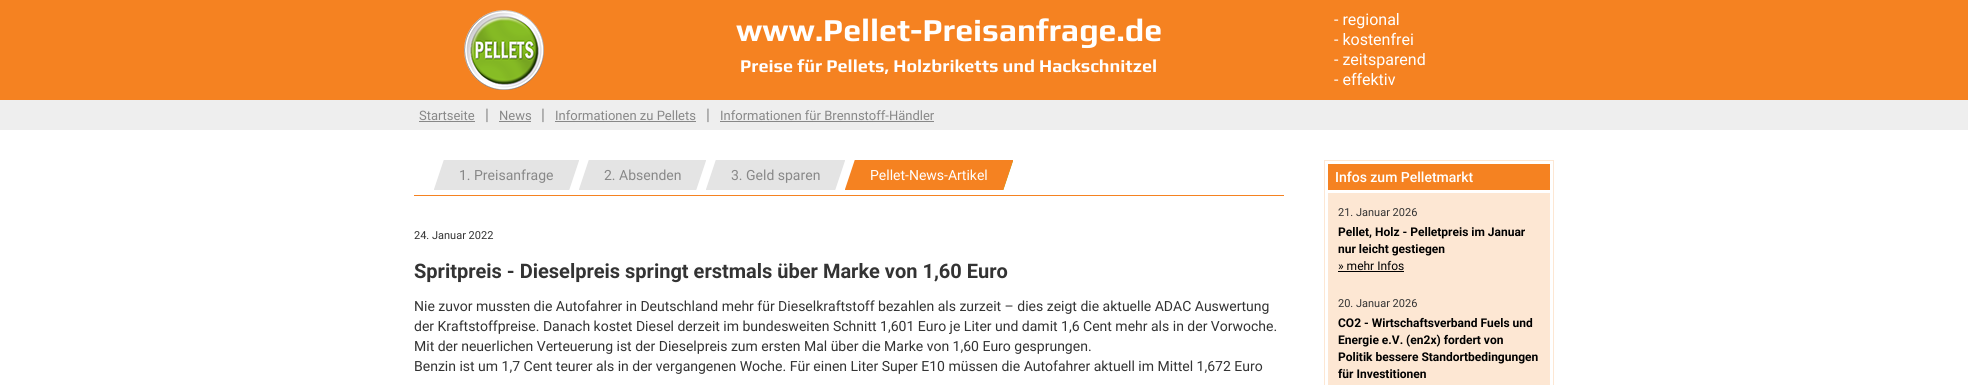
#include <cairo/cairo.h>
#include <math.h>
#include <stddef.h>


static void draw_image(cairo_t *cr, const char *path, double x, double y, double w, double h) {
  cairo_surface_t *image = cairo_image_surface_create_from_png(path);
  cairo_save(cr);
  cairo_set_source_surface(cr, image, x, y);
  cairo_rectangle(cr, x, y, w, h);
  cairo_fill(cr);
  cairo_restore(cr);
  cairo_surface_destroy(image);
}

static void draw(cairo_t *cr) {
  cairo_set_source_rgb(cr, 1, 1, 1);
  cairo_paint(cr);
  cairo_set_source_rgb(cr, 245 / 255.0, 130 / 255.0, 33 / 255.0);
  cairo_rectangle(cr, 0, 0, 1968, 100);
  cairo_fill(cr);
  draw_image(cr, "images/1.png", 464, 10, 80, 80);
  cairo_set_source_rgb(cr, 238 / 255.0, 238 / 255.0, 238 / 255.0);
  cairo_rectangle(cr, 0, 100, 1968, 30);
  cairo_fill(cr);
  cairo_set_source_rgb(cr, 136 / 255.0, 136 / 255.0, 136 / 255.0);
  cairo_rectangle(cr, 419, 121, 56, 1);
  cairo_fill(cr);
  cairo_rectangle(cr, 499, 121, 32, 1);
  cairo_fill(cr);
  cairo_rectangle(cr, 555, 121, 141, 1);
  cairo_fill(cr);
  cairo_rectangle(cr, 720, 121, 214, 1);
  cairo_fill(cr);
  cairo_set_source_rgb(cr, 245 / 255.0, 130 / 255.0, 33 / 255.0);
  cairo_rectangle(cr, 414, 195, 870, 1);
  cairo_fill(cr);
  draw_image(cr, "images/2.png", 434, 160, 10, 30);
  cairo_set_source_rgb(cr, 228 / 255.0, 228 / 255.0, 228 / 255.0);
  cairo_rectangle(cr, 444, 160, 125, 30);
  cairo_fill(cr);
  draw_image(cr, "images/3.png", 569, 160, 10, 30);
  draw_image(cr, "images/2.png", 579, 160, 10, 30);
  cairo_rectangle(cr, 589, 160, 107, 30);
  cairo_fill(cr);
  draw_image(cr, "images/3.png", 696, 160, 10, 30);
  draw_image(cr, "images/2.png", 706, 160, 10, 30);
  cairo_rectangle(cr, 716, 160, 119, 30);
  cairo_fill(cr);
  draw_image(cr, "images/3.png", 835, 160, 10, 30);
  draw_image(cr, "images/4.png", 845, 160, 10, 30);
  cairo_set_source_rgb(cr, 245 / 255.0, 130 / 255.0, 33 / 255.0);
  cairo_rectangle(cr, 855, 160, 148, 30);
  cairo_fill(cr);
  draw_image(cr, "images/5.png", 1003, 160, 10, 30);
  cairo_rectangle(cr, 1324.5, 160.5, 229, 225);
  cairo_set_source_rgb(cr, 253 / 255.0, 231 / 255.0, 211 / 255.0);
  cairo_set_line_width(cr, 1);
  cairo_stroke(cr);
  cairo_set_source_rgb(cr, 245 / 255.0, 130 / 255.0, 33 / 255.0);
  cairo_rectangle(cr, 1328, 164, 222, 26);
  cairo_fill(cr);
  cairo_set_source_rgb(cr, 253 / 255.0, 231 / 255.0, 211 / 255.0);
  cairo_rectangle(cr, 1328, 193, 222, 192);
  cairo_fill(cr);
  cairo_set_source_rgb(cr, 0, 0, 0);
  cairo_rectangle(cr, 1338, 271, 66, 1);
  cairo_fill(cr);
  cairo_select_font_face(cr, "Play", CAIRO_FONT_SLANT_NORMAL, CAIRO_FONT_WEIGHT_BOLD);
  cairo_set_font_size(cr, 32);
  cairo_set_source_rgb(cr, 1, 1, 1);
  cairo_move_to(cr, 736, 41);
  cairo_show_text(cr, "www.Pellet-Preisanfrage.de");
  cairo_set_font_size(cr, 18);
  cairo_move_to(cr, 740, 72);
  cairo_show_text(cr, "Preise für Pellets, Holzbriketts und Hackschnitzel");
  cairo_select_font_face(cr, "Roboto", CAIRO_FONT_SLANT_NORMAL, CAIRO_FONT_WEIGHT_NORMAL);
  cairo_set_font_size(cr, 16);
  cairo_move_to(cr, 1334, 25);
  cairo_show_text(cr, "- regional");
  cairo_move_to(cr, 1334, 45);
  cairo_show_text(cr, "- kostenfrei");
  cairo_move_to(cr, 1334, 65);
  cairo_show_text(cr, "- zeitsparend");
  cairo_move_to(cr, 1334, 85);
  cairo_show_text(cr, "- effektiv");
  cairo_set_font_size(cr, 13);
  cairo_set_source_rgb(cr, 136 / 255.0, 136 / 255.0, 136 / 255.0);
  cairo_move_to(cr, 419, 120);
  cairo_show_text(cr, "Startseite");
  cairo_set_font_size(cr, 16);
  cairo_move_to(cr, 485, 120);
  cairo_show_text(cr, "|");
  cairo_set_font_size(cr, 13);
  cairo_move_to(cr, 499, 120);
  cairo_show_text(cr, "News");
  cairo_set_font_size(cr, 16);
  cairo_move_to(cr, 541, 120);
  cairo_show_text(cr, "|");
  cairo_set_font_size(cr, 13);
  cairo_move_to(cr, 555, 120);
  cairo_show_text(cr, "Informationen zu Pellets");
  cairo_set_font_size(cr, 16);
  cairo_move_to(cr, 706, 120);
  cairo_show_text(cr, "|");
  cairo_set_font_size(cr, 13);
  cairo_move_to(cr, 720, 120);
  cairo_show_text(cr, "Informationen für Brennstoff-Händler");
  cairo_set_font_size(cr, 14);
  cairo_move_to(cr, 459, 180);
  cairo_show_text(cr, "1. Preisanfrage");
  cairo_move_to(cr, 604, 180);
  cairo_show_text(cr, "2. Absenden");
  cairo_move_to(cr, 731, 180);
  cairo_show_text(cr, "3. Geld sparen");
  cairo_set_source_rgb(cr, 1, 1, 1);
  cairo_move_to(cr, 870, 180);
  cairo_show_text(cr, "Pellet-News-Artikel");
  cairo_set_font_size(cr, 11);
  cairo_set_source_rgb(cr, 51 / 255.0, 51 / 255.0, 51 / 255.0);
  cairo_move_to(cr, 414, 239);
  cairo_show_text(cr, "24. Januar 2022");
  cairo_select_font_face(cr, "Roboto", CAIRO_FONT_SLANT_NORMAL, CAIRO_FONT_WEIGHT_BOLD);
  cairo_set_font_size(cr, 20);
  cairo_move_to(cr, 414, 278);
  cairo_show_text(cr, "Spritpreis - Dieselpreis springt erstmals über Marke von 1,60 Euro");
  cairo_select_font_face(cr, "Roboto", CAIRO_FONT_SLANT_NORMAL, CAIRO_FONT_WEIGHT_NORMAL);
  cairo_set_font_size(cr, 14);
  cairo_move_to(cr, 414, 311);
  cairo_show_text(cr, "Nie zuvor mussten die Autofahrer in Deutschland mehr für Dieselkraftstoff bezahlen als zurzeit – dies zeigt die aktuelle ADAC Auswertung");
  cairo_move_to(cr, 414, 331);
  cairo_show_text(cr, "der Kraftstoffpreise. Danach kostet Diesel derzeit im bundesweiten Schnitt 1,601 Euro je Liter und damit 1,6 Cent mehr als in der Vorwoche.");
  cairo_move_to(cr, 414, 351);
  cairo_show_text(cr, "Mit der neuerlichen Verteuerung ist der Dieselpreis zum ersten Mal über die Marke von 1,60 Euro gesprungen.");
  cairo_move_to(cr, 414, 371);
  cairo_show_text(cr, "Benzin ist um 1,7 Cent teurer als in der vergangenen Woche. Für einen Liter Super E10 müssen die Autofahrer aktuell im Mittel 1,672 Euro");
  cairo_select_font_face(cr, "Roboto Medium", CAIRO_FONT_SLANT_NORMAL, CAIRO_FONT_WEIGHT_NORMAL);
  cairo_set_source_rgb(cr, 1, 1, 1);
  cairo_move_to(cr, 1335, 182);
  cairo_show_text(cr, "Infos zum Pelletmarkt");
  cairo_select_font_face(cr, "Roboto", CAIRO_FONT_SLANT_NORMAL, CAIRO_FONT_WEIGHT_NORMAL);
  cairo_set_font_size(cr, 11);
  cairo_set_source_rgb(cr, 51 / 255.0, 51 / 255.0, 51 / 255.0);
  cairo_move_to(cr, 1338, 216);
  cairo_show_text(cr, "21. Januar 2026");
  cairo_select_font_face(cr, "Roboto", CAIRO_FONT_SLANT_NORMAL, CAIRO_FONT_WEIGHT_BOLD);
  cairo_set_font_size(cr, 12);
  cairo_set_source_rgb(cr, 0, 0, 0);
  cairo_move_to(cr, 1338, 236);
  cairo_show_text(cr, "Pellet, Holz - Pelletpreis im Januar");
  cairo_move_to(cr, 1338, 253);
  cairo_show_text(cr, "nur leicht gestiegen");
  cairo_select_font_face(cr, "Roboto", CAIRO_FONT_SLANT_NORMAL, CAIRO_FONT_WEIGHT_NORMAL);
  cairo_move_to(cr, 1338, 270);
  cairo_show_text(cr, "» mehr Infos");
  cairo_set_font_size(cr, 11);
  cairo_set_source_rgb(cr, 51 / 255.0, 51 / 255.0, 51 / 255.0);
  cairo_move_to(cr, 1338, 307);
  cairo_show_text(cr, "20. Januar 2026");
  cairo_select_font_face(cr, "Roboto", CAIRO_FONT_SLANT_NORMAL, CAIRO_FONT_WEIGHT_BOLD);
  cairo_set_font_size(cr, 12);
  cairo_set_source_rgb(cr, 0, 0, 0);
  cairo_move_to(cr, 1338, 327);
  cairo_show_text(cr, "CO2 - Wirtschaftsverband Fuels und");
  cairo_move_to(cr, 1338, 344);
  cairo_show_text(cr, "Energie e.V. (en2x) fordert von");
  cairo_move_to(cr, 1338, 361);
  cairo_show_text(cr, "Politik bessere Standortbedingungen");
  cairo_move_to(cr, 1338, 378);
  cairo_show_text(cr, "für Investitionen");
}

int main(void) {
  cairo_surface_t *surface = cairo_image_surface_create(CAIRO_FORMAT_RGB24, 1968, 385);
  cairo_t *cr = cairo_create(surface);
  cairo_font_options_t *options = cairo_font_options_create();
  cairo_font_options_set_hint_metrics(options, CAIRO_HINT_METRICS_OFF);
  cairo_font_options_set_hint_style(options, CAIRO_HINT_STYLE_NONE);
  cairo_set_font_options(cr, options);
  cairo_set_miter_limit(cr, 4);
  draw(cr);
  cairo_surface_write_to_png(surface, "out.png");
  cairo_font_options_destroy(options);
  cairo_destroy(cr);
  cairo_surface_destroy(surface);
  return 0;
}
